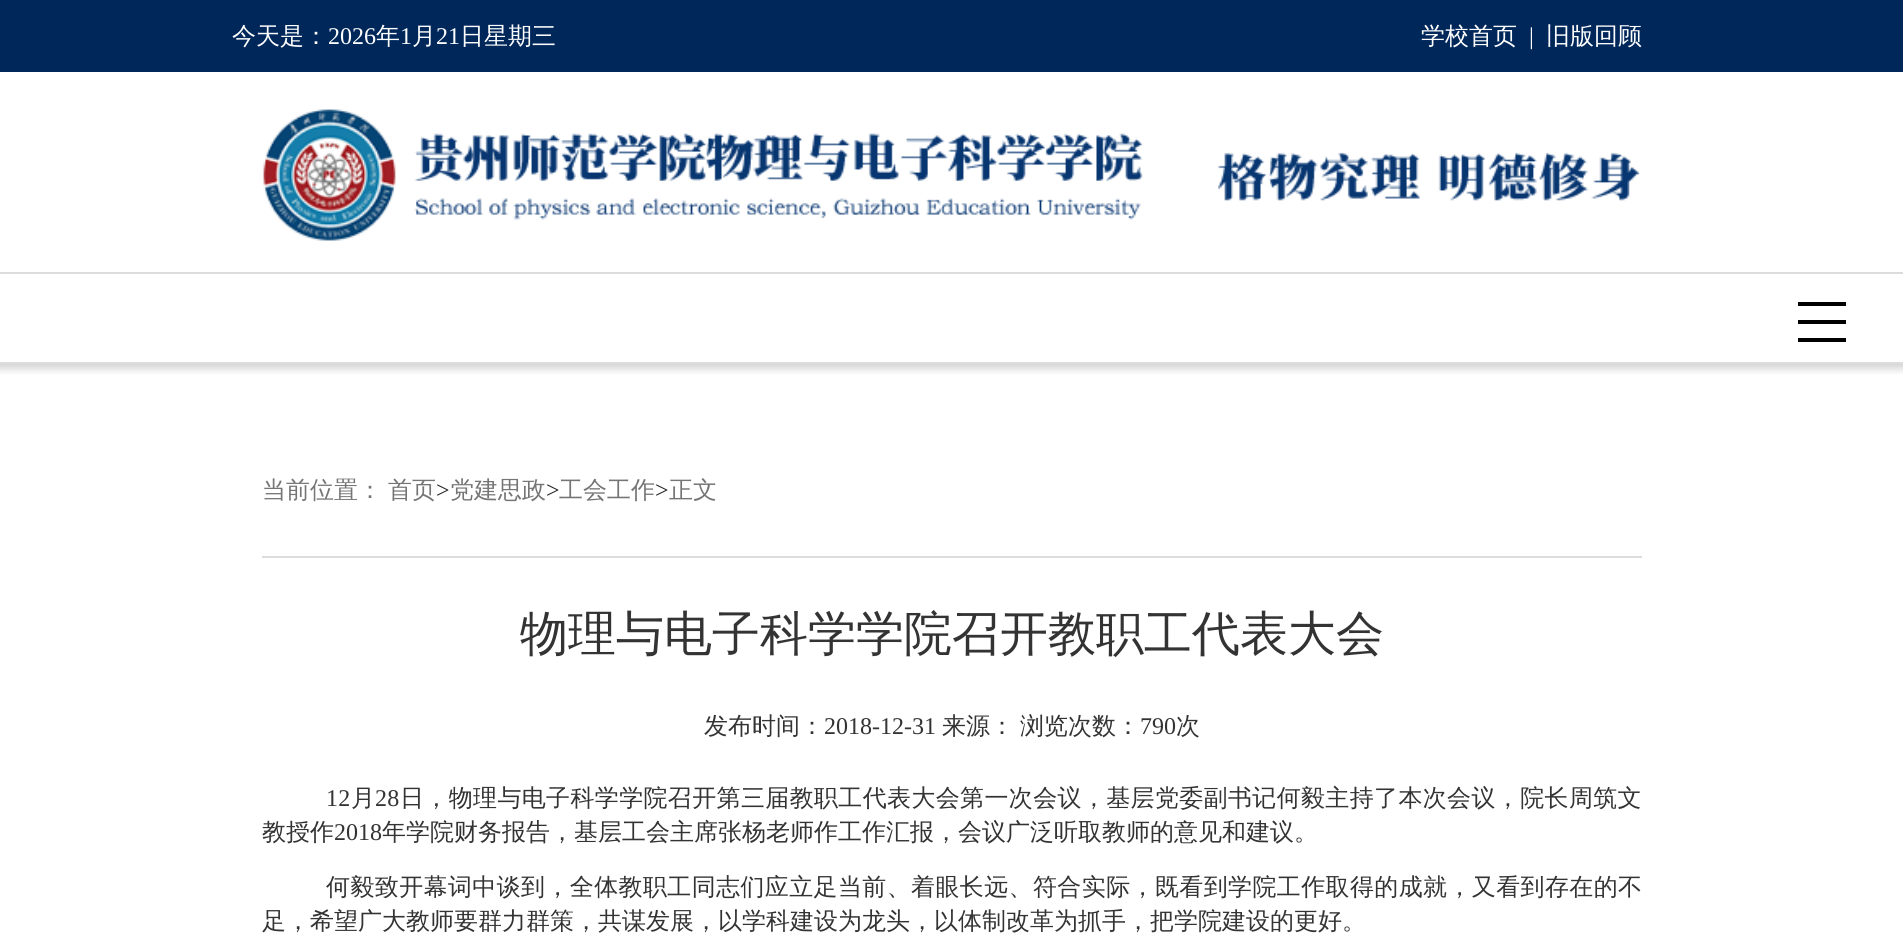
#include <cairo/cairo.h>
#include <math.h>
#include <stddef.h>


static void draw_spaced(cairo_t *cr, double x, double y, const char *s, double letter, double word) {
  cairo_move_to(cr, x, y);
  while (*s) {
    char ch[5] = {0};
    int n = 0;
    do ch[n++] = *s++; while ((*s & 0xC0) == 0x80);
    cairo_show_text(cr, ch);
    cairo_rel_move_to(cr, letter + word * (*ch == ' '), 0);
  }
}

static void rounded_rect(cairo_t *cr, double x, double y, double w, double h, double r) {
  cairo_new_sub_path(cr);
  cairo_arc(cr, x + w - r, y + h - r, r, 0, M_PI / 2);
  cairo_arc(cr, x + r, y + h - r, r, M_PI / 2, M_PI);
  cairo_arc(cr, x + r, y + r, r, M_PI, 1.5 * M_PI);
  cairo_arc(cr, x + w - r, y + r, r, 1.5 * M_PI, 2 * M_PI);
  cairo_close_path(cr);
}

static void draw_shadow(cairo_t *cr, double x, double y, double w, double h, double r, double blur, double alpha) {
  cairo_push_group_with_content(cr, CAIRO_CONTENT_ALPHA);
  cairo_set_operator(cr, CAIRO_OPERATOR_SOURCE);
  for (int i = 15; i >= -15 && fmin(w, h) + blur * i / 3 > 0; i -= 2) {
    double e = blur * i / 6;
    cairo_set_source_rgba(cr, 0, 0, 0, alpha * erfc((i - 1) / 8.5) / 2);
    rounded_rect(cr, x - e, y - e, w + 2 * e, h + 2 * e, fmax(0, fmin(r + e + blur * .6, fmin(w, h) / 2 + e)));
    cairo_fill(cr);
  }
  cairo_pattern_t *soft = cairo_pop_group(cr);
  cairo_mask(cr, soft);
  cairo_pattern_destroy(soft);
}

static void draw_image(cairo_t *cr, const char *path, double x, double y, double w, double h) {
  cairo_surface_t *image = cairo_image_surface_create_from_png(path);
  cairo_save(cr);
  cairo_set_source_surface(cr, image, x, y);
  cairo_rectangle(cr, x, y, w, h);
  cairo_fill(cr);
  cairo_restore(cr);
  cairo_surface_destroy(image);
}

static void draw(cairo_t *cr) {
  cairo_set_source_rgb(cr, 1, 1, 1);
  cairo_paint(cr);
  cairo_save(cr);
  cairo_rectangle(cr, 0, 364, 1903, 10);
  cairo_clip(cr);
  cairo_set_source_rgb(cr, 0, 0, 0);
  draw_shadow(cr, -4, -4, 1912, 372, 0, 5, 0.2);
  cairo_restore(cr);
  cairo_set_source_rgb(cr, 0, 39 / 255.0, 90 / 255.0);
  cairo_rectangle(cr, 0, 0, 1903, 72);
  cairo_fill(cr);
  draw_image(cr, "images/1.png", 263, 109, 1378, 132);
  cairo_set_source_rgb(cr, 220 / 255.0, 220 / 255.0, 220 / 255.0);
  cairo_rectangle(cr, 0, 272, 1903, 2);
  cairo_fill(cr);
  cairo_rectangle(cr, 0, 362, 1903, 2);
  cairo_fill(cr);
  cairo_set_source_rgb(cr, 0, 0, 0);
  cairo_rectangle(cr, 1798, 302, 48, 4);
  cairo_fill(cr);
  cairo_rectangle(cr, 1798, 320, 48, 4);
  cairo_fill(cr);
  cairo_rectangle(cr, 1798, 338, 48, 4);
  cairo_fill(cr);
  cairo_set_source_rgb(cr, 220 / 255.0, 220 / 255.0, 220 / 255.0);
  cairo_rectangle(cr, 262, 556, 1380, 2);
  cairo_fill(cr);
  cairo_select_font_face(cr, "WenQuanYi Zen Hei Medium", CAIRO_FONT_SLANT_NORMAL, CAIRO_FONT_WEIGHT_NORMAL);
  cairo_set_font_size(cr, 24);
  cairo_set_source_rgb(cr, 1, 1, 1);
  cairo_move_to(cr, 232, 44);
  cairo_show_text(cr, "今天是：");
  cairo_select_font_face(cr, "Liberation Serif", CAIRO_FONT_SLANT_NORMAL, CAIRO_FONT_WEIGHT_NORMAL);
  cairo_move_to(cr, 328, 44);
  cairo_show_text(cr, "2026");
  cairo_select_font_face(cr, "WenQuanYi Zen Hei Medium", CAIRO_FONT_SLANT_NORMAL, CAIRO_FONT_WEIGHT_NORMAL);
  cairo_move_to(cr, 376, 44);
  cairo_show_text(cr, "年");
  cairo_select_font_face(cr, "Liberation Serif", CAIRO_FONT_SLANT_NORMAL, CAIRO_FONT_WEIGHT_NORMAL);
  cairo_move_to(cr, 400, 44);
  cairo_show_text(cr, "1");
  cairo_select_font_face(cr, "WenQuanYi Zen Hei Medium", CAIRO_FONT_SLANT_NORMAL, CAIRO_FONT_WEIGHT_NORMAL);
  cairo_move_to(cr, 412, 44);
  cairo_show_text(cr, "月");
  cairo_select_font_face(cr, "Liberation Serif", CAIRO_FONT_SLANT_NORMAL, CAIRO_FONT_WEIGHT_NORMAL);
  cairo_move_to(cr, 436, 44);
  cairo_show_text(cr, "21");
  cairo_select_font_face(cr, "WenQuanYi Zen Hei Medium", CAIRO_FONT_SLANT_NORMAL, CAIRO_FONT_WEIGHT_NORMAL);
  cairo_move_to(cr, 460, 44);
  cairo_show_text(cr, "日星期三");
  cairo_move_to(cr, 1421, 44);
  cairo_show_text(cr, "学校首页");
  cairo_select_font_face(cr, "Liberation Serif", CAIRO_FONT_SLANT_NORMAL, CAIRO_FONT_WEIGHT_NORMAL);
  cairo_move_to(cr, 1529, 44);
  cairo_show_text(cr, "|");
  cairo_select_font_face(cr, "WenQuanYi Zen Hei Medium", CAIRO_FONT_SLANT_NORMAL, CAIRO_FONT_WEIGHT_NORMAL);
  cairo_move_to(cr, 1546, 44);
  cairo_show_text(cr, "旧版回顾");
  cairo_set_source_rgb(cr, 117 / 255.0, 117 / 255.0, 117 / 255.0);
  cairo_move_to(cr, 262, 498);
  cairo_show_text(cr, "当前位置：");
  cairo_move_to(cr, 388, 498);
  cairo_show_text(cr, "首页");
  cairo_select_font_face(cr, "Liberation Serif", CAIRO_FONT_SLANT_NORMAL, CAIRO_FONT_WEIGHT_NORMAL);
  cairo_set_source_rgb(cr, 34 / 255.0, 34 / 255.0, 34 / 255.0);
  cairo_move_to(cr, 436, 498);
  cairo_show_text(cr, ">");
  cairo_select_font_face(cr, "WenQuanYi Zen Hei Medium", CAIRO_FONT_SLANT_NORMAL, CAIRO_FONT_WEIGHT_NORMAL);
  cairo_set_source_rgb(cr, 117 / 255.0, 117 / 255.0, 117 / 255.0);
  cairo_move_to(cr, 450, 498);
  cairo_show_text(cr, "党建思政");
  cairo_select_font_face(cr, "Liberation Serif", CAIRO_FONT_SLANT_NORMAL, CAIRO_FONT_WEIGHT_NORMAL);
  cairo_set_source_rgb(cr, 34 / 255.0, 34 / 255.0, 34 / 255.0);
  cairo_move_to(cr, 546, 498);
  cairo_show_text(cr, ">");
  cairo_select_font_face(cr, "WenQuanYi Zen Hei Medium", CAIRO_FONT_SLANT_NORMAL, CAIRO_FONT_WEIGHT_NORMAL);
  cairo_set_source_rgb(cr, 117 / 255.0, 117 / 255.0, 117 / 255.0);
  cairo_move_to(cr, 559, 498);
  cairo_show_text(cr, "工会工作");
  cairo_select_font_face(cr, "Liberation Serif", CAIRO_FONT_SLANT_NORMAL, CAIRO_FONT_WEIGHT_NORMAL);
  cairo_set_source_rgb(cr, 34 / 255.0, 34 / 255.0, 34 / 255.0);
  cairo_move_to(cr, 655, 498);
  cairo_show_text(cr, ">");
  cairo_select_font_face(cr, "WenQuanYi Zen Hei Medium", CAIRO_FONT_SLANT_NORMAL, CAIRO_FONT_WEIGHT_NORMAL);
  cairo_set_source_rgb(cr, 117 / 255.0, 117 / 255.0, 117 / 255.0);
  cairo_move_to(cr, 669, 498);
  cairo_show_text(cr, "正文");
  cairo_set_font_size(cr, 48);
  cairo_set_source_rgb(cr, 51 / 255.0, 51 / 255.0, 51 / 255.0);
  cairo_move_to(cr, 520, 650);
  cairo_show_text(cr, "物理与电子科学学院召开教职工代表大会");
  cairo_set_font_size(cr, 24);
  cairo_move_to(cr, 704, 734);
  cairo_show_text(cr, "发布时间：");
  cairo_select_font_face(cr, "Liberation Serif", CAIRO_FONT_SLANT_NORMAL, CAIRO_FONT_WEIGHT_NORMAL);
  cairo_move_to(cr, 824, 734);
  cairo_show_text(cr, "2018-12-31");
  cairo_select_font_face(cr, "WenQuanYi Zen Hei Medium", CAIRO_FONT_SLANT_NORMAL, CAIRO_FONT_WEIGHT_NORMAL);
  cairo_move_to(cr, 942, 734);
  cairo_show_text(cr, "来源：");
  cairo_move_to(cr, 1020, 734);
  cairo_show_text(cr, "浏览次数：");
  cairo_select_font_face(cr, "Liberation Serif", CAIRO_FONT_SLANT_NORMAL, CAIRO_FONT_WEIGHT_NORMAL);
  cairo_move_to(cr, 1140, 734);
  cairo_show_text(cr, "790");
  cairo_select_font_face(cr, "WenQuanYi Zen Hei Medium", CAIRO_FONT_SLANT_NORMAL, CAIRO_FONT_WEIGHT_NORMAL);
  cairo_move_to(cr, 1176, 734);
  cairo_show_text(cr, "次");
  cairo_select_font_face(cr, "Liberation Serif", CAIRO_FONT_SLANT_NORMAL, CAIRO_FONT_WEIGHT_NORMAL);
  draw_spaced(cr, 326, 806, "12", 0.35, 0);
  cairo_select_font_face(cr, "WenQuanYi Zen Hei Medium", CAIRO_FONT_SLANT_NORMAL, CAIRO_FONT_WEIGHT_NORMAL);
  draw_spaced(cr, 351, 806, "月", 0.35, 0);
  cairo_select_font_face(cr, "Liberation Serif", CAIRO_FONT_SLANT_NORMAL, CAIRO_FONT_WEIGHT_NORMAL);
  draw_spaced(cr, 375, 806, "28", 0.35, 0);
  cairo_select_font_face(cr, "WenQuanYi Zen Hei Medium", CAIRO_FONT_SLANT_NORMAL, CAIRO_FONT_WEIGHT_NORMAL);
  draw_spaced(cr, 400, 806, "日，物理与电子科学学院召开第三届教职工代表大会第一次会议，基层党委副书记何毅主持了本次会议，院长周筑文", 0.35, 0);
  cairo_move_to(cr, 262, 840);
  cairo_show_text(cr, "教授作");
  cairo_select_font_face(cr, "Liberation Serif", CAIRO_FONT_SLANT_NORMAL, CAIRO_FONT_WEIGHT_NORMAL);
  cairo_move_to(cr, 334, 840);
  cairo_show_text(cr, "2018");
  cairo_select_font_face(cr, "WenQuanYi Zen Hei Medium", CAIRO_FONT_SLANT_NORMAL, CAIRO_FONT_WEIGHT_NORMAL);
  cairo_move_to(cr, 382, 840);
  cairo_show_text(cr, "年学院财务报告，基层工会主席张杨老师作工作汇报，会议广泛听取教师的意见和建议。");
  draw_spaced(cr, 326, 895, "何毅致开幕词中谈到，全体教职工同志们应立足当前、着眼长远、符合实际，既看到学院工作取得的成就，又看到存在的不", 0.38, 0);
  cairo_move_to(cr, 262, 929);
  cairo_show_text(cr, "足，希望广大教师要群力群策，共谋发展，以学科建设为龙头，以体制改革为抓手，把学院建设的更好。");
}

int main(void) {
  cairo_surface_t *surface = cairo_image_surface_create(CAIRO_FORMAT_RGB24, 1903, 945);
  cairo_t *cr = cairo_create(surface);
  cairo_font_options_t *options = cairo_font_options_create();
  cairo_font_options_set_hint_metrics(options, CAIRO_HINT_METRICS_OFF);
  cairo_font_options_set_hint_style(options, CAIRO_HINT_STYLE_NONE);
  cairo_set_font_options(cr, options);
  cairo_set_miter_limit(cr, 4);
  draw(cr);
  cairo_surface_write_to_png(surface, "out.png");
  cairo_font_options_destroy(options);
  cairo_destroy(cr);
  cairo_surface_destroy(surface);
  return 0;
}
